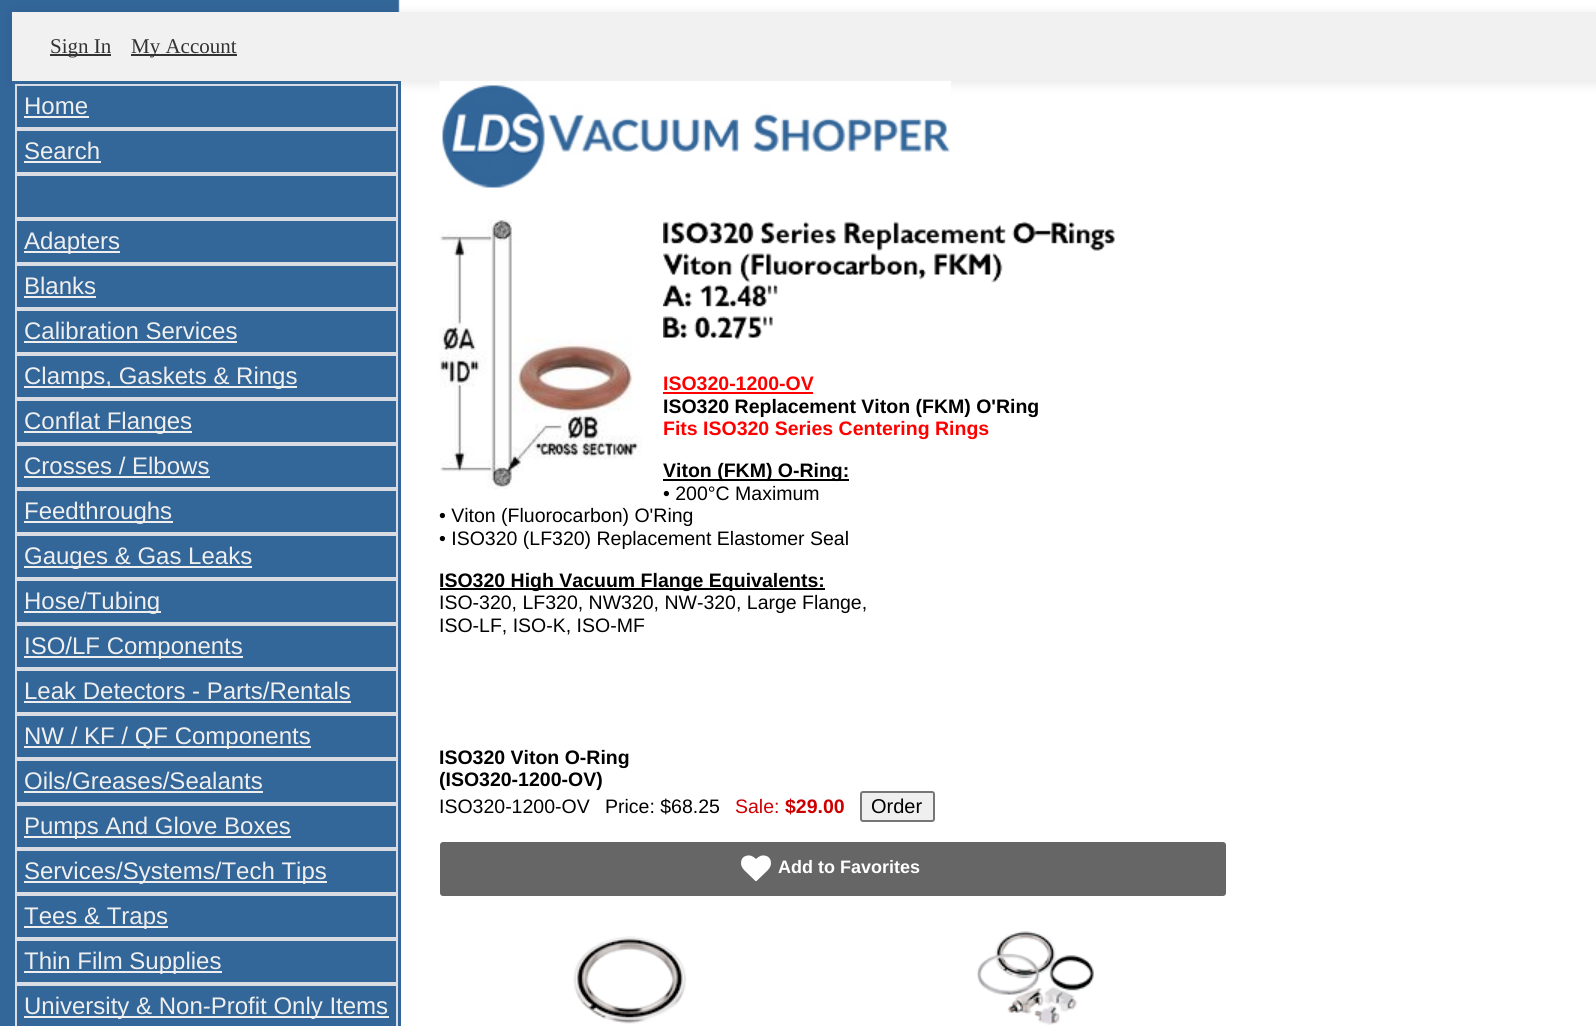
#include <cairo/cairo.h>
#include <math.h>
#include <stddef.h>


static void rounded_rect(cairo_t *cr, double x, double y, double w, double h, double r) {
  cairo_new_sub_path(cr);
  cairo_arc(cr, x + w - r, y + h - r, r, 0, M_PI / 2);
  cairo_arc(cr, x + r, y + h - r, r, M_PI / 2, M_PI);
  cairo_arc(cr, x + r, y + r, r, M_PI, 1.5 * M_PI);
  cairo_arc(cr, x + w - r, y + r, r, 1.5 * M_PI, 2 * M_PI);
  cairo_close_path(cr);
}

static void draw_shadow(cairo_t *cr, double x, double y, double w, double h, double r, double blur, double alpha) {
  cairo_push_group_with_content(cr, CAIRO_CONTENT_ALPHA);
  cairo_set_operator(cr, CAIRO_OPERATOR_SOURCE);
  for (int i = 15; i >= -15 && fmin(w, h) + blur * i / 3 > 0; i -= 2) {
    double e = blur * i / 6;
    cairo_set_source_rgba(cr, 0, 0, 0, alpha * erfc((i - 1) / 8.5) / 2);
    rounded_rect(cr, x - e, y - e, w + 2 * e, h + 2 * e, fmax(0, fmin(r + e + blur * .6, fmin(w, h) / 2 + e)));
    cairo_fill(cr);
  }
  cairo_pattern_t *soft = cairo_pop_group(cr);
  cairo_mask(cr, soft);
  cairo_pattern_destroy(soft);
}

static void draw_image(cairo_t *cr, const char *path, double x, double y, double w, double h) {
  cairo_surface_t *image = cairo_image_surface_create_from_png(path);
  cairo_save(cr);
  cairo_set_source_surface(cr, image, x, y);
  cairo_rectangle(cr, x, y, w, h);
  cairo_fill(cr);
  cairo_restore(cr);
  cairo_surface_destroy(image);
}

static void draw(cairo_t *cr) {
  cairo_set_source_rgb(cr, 1, 1, 1);
  cairo_paint(cr);
  draw_image(cr, "images/1.png", 0, 0, 400, 1026);
  cairo_set_source_rgb(cr, 0, 0, 0);
  draw_shadow(cr, 14, 14, 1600, 69, 0, 6, 0.1);
  cairo_set_source_rgb(cr, 241 / 255.0, 241 / 255.0, 241 / 255.0);
  cairo_rectangle(cr, 12, 12, 1584, 69);
  cairo_fill(cr);
  cairo_set_source_rgb(cr, 51 / 255.0, 51 / 255.0, 51 / 255.0);
  cairo_rectangle(cr, 50, 54, 61, 2);
  cairo_fill(cr);
  cairo_rectangle(cr, 131, 54, 106, 2);
  cairo_fill(cr);
  cairo_set_source_rgb(cr, 51 / 255.0, 102 / 255.0, 153 / 255.0);
  cairo_rectangle(cr, 12, 81, 389, 945);
  cairo_fill(cr);
  cairo_rectangle(cr, 16, 85, 381, 43);
  cairo_set_source_rgb(cr, 218 / 255.0, 220 / 255.0, 227 / 255.0);
  cairo_stroke(cr);
  cairo_set_source_rgb(cr, 239 / 255.0, 239 / 255.0, 239 / 255.0);
  cairo_rectangle(cr, 24, 116, 65, 2);
  cairo_fill(cr);
  cairo_rectangle(cr, 16, 130, 381, 43);
  cairo_set_source_rgb(cr, 218 / 255.0, 220 / 255.0, 227 / 255.0);
  cairo_stroke(cr);
  cairo_set_source_rgb(cr, 239 / 255.0, 239 / 255.0, 239 / 255.0);
  cairo_rectangle(cr, 24, 161, 77, 2);
  cairo_fill(cr);
  cairo_rectangle(cr, 16, 175, 381, 43);
  cairo_set_source_rgb(cr, 218 / 255.0, 220 / 255.0, 227 / 255.0);
  cairo_stroke(cr);
  cairo_rectangle(cr, 16, 220, 381, 43);
  cairo_stroke(cr);
  cairo_set_source_rgb(cr, 239 / 255.0, 239 / 255.0, 239 / 255.0);
  cairo_rectangle(cr, 24, 251, 96, 2);
  cairo_fill(cr);
  cairo_rectangle(cr, 16, 265, 381, 43);
  cairo_set_source_rgb(cr, 218 / 255.0, 220 / 255.0, 227 / 255.0);
  cairo_stroke(cr);
  cairo_set_source_rgb(cr, 239 / 255.0, 239 / 255.0, 239 / 255.0);
  cairo_rectangle(cr, 24, 296, 72, 2);
  cairo_fill(cr);
  cairo_rectangle(cr, 16, 310, 381, 43);
  cairo_set_source_rgb(cr, 218 / 255.0, 220 / 255.0, 227 / 255.0);
  cairo_stroke(cr);
  cairo_set_source_rgb(cr, 239 / 255.0, 239 / 255.0, 239 / 255.0);
  cairo_rectangle(cr, 24, 341, 213, 2);
  cairo_fill(cr);
  cairo_rectangle(cr, 16, 355, 381, 43);
  cairo_set_source_rgb(cr, 218 / 255.0, 220 / 255.0, 227 / 255.0);
  cairo_stroke(cr);
  cairo_set_source_rgb(cr, 239 / 255.0, 239 / 255.0, 239 / 255.0);
  cairo_rectangle(cr, 24, 386, 273, 2);
  cairo_fill(cr);
  cairo_rectangle(cr, 16, 400, 381, 43);
  cairo_set_source_rgb(cr, 218 / 255.0, 220 / 255.0, 227 / 255.0);
  cairo_stroke(cr);
  cairo_set_source_rgb(cr, 239 / 255.0, 239 / 255.0, 239 / 255.0);
  cairo_rectangle(cr, 24, 431, 168, 2);
  cairo_fill(cr);
  cairo_rectangle(cr, 16, 445, 381, 43);
  cairo_set_source_rgb(cr, 218 / 255.0, 220 / 255.0, 227 / 255.0);
  cairo_stroke(cr);
  cairo_set_source_rgb(cr, 239 / 255.0, 239 / 255.0, 239 / 255.0);
  cairo_rectangle(cr, 24, 476, 186, 2);
  cairo_fill(cr);
  cairo_rectangle(cr, 16, 490, 381, 43);
  cairo_set_source_rgb(cr, 218 / 255.0, 220 / 255.0, 227 / 255.0);
  cairo_stroke(cr);
  cairo_set_source_rgb(cr, 239 / 255.0, 239 / 255.0, 239 / 255.0);
  cairo_rectangle(cr, 24, 521, 149, 2);
  cairo_fill(cr);
  cairo_rectangle(cr, 16, 535, 381, 43);
  cairo_set_source_rgb(cr, 218 / 255.0, 220 / 255.0, 227 / 255.0);
  cairo_stroke(cr);
  cairo_set_source_rgb(cr, 239 / 255.0, 239 / 255.0, 239 / 255.0);
  cairo_rectangle(cr, 24, 566, 228, 2);
  cairo_fill(cr);
  cairo_rectangle(cr, 16, 580, 381, 43);
  cairo_set_source_rgb(cr, 218 / 255.0, 220 / 255.0, 227 / 255.0);
  cairo_stroke(cr);
  cairo_set_source_rgb(cr, 239 / 255.0, 239 / 255.0, 239 / 255.0);
  cairo_rectangle(cr, 24, 611, 137, 2);
  cairo_fill(cr);
  cairo_rectangle(cr, 16, 625, 381, 43);
  cairo_set_source_rgb(cr, 218 / 255.0, 220 / 255.0, 227 / 255.0);
  cairo_stroke(cr);
  cairo_set_source_rgb(cr, 239 / 255.0, 239 / 255.0, 239 / 255.0);
  cairo_rectangle(cr, 24, 656, 219, 2);
  cairo_fill(cr);
  cairo_rectangle(cr, 16, 670, 381, 43);
  cairo_set_source_rgb(cr, 218 / 255.0, 220 / 255.0, 227 / 255.0);
  cairo_stroke(cr);
  cairo_set_source_rgb(cr, 239 / 255.0, 239 / 255.0, 239 / 255.0);
  cairo_rectangle(cr, 24, 701, 327, 2);
  cairo_fill(cr);
  cairo_rectangle(cr, 16, 715, 381, 43);
  cairo_set_source_rgb(cr, 218 / 255.0, 220 / 255.0, 227 / 255.0);
  cairo_stroke(cr);
  cairo_set_source_rgb(cr, 239 / 255.0, 239 / 255.0, 239 / 255.0);
  cairo_rectangle(cr, 24, 746, 287, 2);
  cairo_fill(cr);
  cairo_rectangle(cr, 16, 760, 381, 43);
  cairo_set_source_rgb(cr, 218 / 255.0, 220 / 255.0, 227 / 255.0);
  cairo_stroke(cr);
  cairo_set_source_rgb(cr, 239 / 255.0, 239 / 255.0, 239 / 255.0);
  cairo_rectangle(cr, 24, 791, 239, 2);
  cairo_fill(cr);
  cairo_rectangle(cr, 16, 805, 381, 43);
  cairo_set_source_rgb(cr, 218 / 255.0, 220 / 255.0, 227 / 255.0);
  cairo_stroke(cr);
  cairo_set_source_rgb(cr, 239 / 255.0, 239 / 255.0, 239 / 255.0);
  cairo_rectangle(cr, 24, 836, 267, 2);
  cairo_fill(cr);
  cairo_rectangle(cr, 16, 850, 381, 43);
  cairo_set_source_rgb(cr, 218 / 255.0, 220 / 255.0, 227 / 255.0);
  cairo_stroke(cr);
  cairo_set_source_rgb(cr, 239 / 255.0, 239 / 255.0, 239 / 255.0);
  cairo_rectangle(cr, 24, 881, 303, 2);
  cairo_fill(cr);
  cairo_rectangle(cr, 16, 895, 381, 43);
  cairo_set_source_rgb(cr, 218 / 255.0, 220 / 255.0, 227 / 255.0);
  cairo_stroke(cr);
  cairo_set_source_rgb(cr, 239 / 255.0, 239 / 255.0, 239 / 255.0);
  cairo_rectangle(cr, 24, 926, 144, 2);
  cairo_fill(cr);
  cairo_rectangle(cr, 16, 940, 381, 43);
  cairo_set_source_rgb(cr, 218 / 255.0, 220 / 255.0, 227 / 255.0);
  cairo_stroke(cr);
  cairo_set_source_rgb(cr, 239 / 255.0, 239 / 255.0, 239 / 255.0);
  cairo_rectangle(cr, 24, 971, 198, 2);
  cairo_fill(cr);
  cairo_rectangle(cr, 16, 985, 381, 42);
  cairo_set_source_rgb(cr, 218 / 255.0, 220 / 255.0, 227 / 255.0);
  cairo_stroke(cr);
  cairo_set_source_rgb(cr, 239 / 255.0, 239 / 255.0, 239 / 255.0);
  cairo_rectangle(cr, 24, 1016, 365, 2);
  cairo_fill(cr);
  draw_image(cr, "images/2.png", 439, 81, 512, 107);
  draw_image(cr, "images/3.png", 439, 219, 203, 270);
  draw_image(cr, "images/4.png", 663, 221, 452, 119);
  cairo_set_source_rgb(cr, 1, 0, 0);
  cairo_rectangle(cr, 663, 392, 150, 2);
  cairo_fill(cr);
  cairo_set_source_rgb(cr, 0, 0, 0);
  cairo_rectangle(cr, 663, 479, 186, 2);
  cairo_fill(cr);
  cairo_rectangle(cr, 440, 588, 385, 2);
  cairo_fill(cr);
  cairo_set_source_rgb(cr, 239 / 255.0, 239 / 255.0, 239 / 255.0);
  rounded_rect(cr, 861, 792, 73, 29, 2);
  cairo_fill_preserve(cr);
  cairo_set_source_rgb(cr, 118 / 255.0, 118 / 255.0, 118 / 255.0);
  cairo_stroke(cr);
  cairo_set_source_rgb(cr, 102 / 255.0, 102 / 255.0, 102 / 255.0);
  rounded_rect(cr, 440, 842, 786, 54, 3);
  cairo_fill(cr);
  draw_image(cr, "images/5.png", 741, 855, 30, 27);
  draw_image(cr, "images/6.png", 573, 936, 114, 88);
  draw_image(cr, "images/7.png", 976, 931, 118, 94);
  cairo_select_font_face(cr, "Liberation Serif", CAIRO_FONT_SLANT_NORMAL, CAIRO_FONT_WEIGHT_NORMAL);
  cairo_set_font_size(cr, 21);
  cairo_set_source_rgb(cr, 51 / 255.0, 51 / 255.0, 51 / 255.0);
  cairo_move_to(cr, 50, 53);
  cairo_show_text(cr, "Sign In");
  cairo_move_to(cr, 131, 53);
  cairo_show_text(cr, "My Account");
  cairo_select_font_face(cr, "Liberation Sans", CAIRO_FONT_SLANT_NORMAL, CAIRO_FONT_WEIGHT_NORMAL);
  cairo_set_font_size(cr, 24);
  cairo_set_source_rgb(cr, 239 / 255.0, 239 / 255.0, 239 / 255.0);
  cairo_move_to(cr, 24, 114);
  cairo_show_text(cr, "Home");
  cairo_move_to(cr, 24, 159);
  cairo_show_text(cr, "Search");
  cairo_move_to(cr, 24, 249);
  cairo_show_text(cr, "Adapters");
  cairo_move_to(cr, 24, 294);
  cairo_show_text(cr, "Blanks");
  cairo_move_to(cr, 24, 339);
  cairo_show_text(cr, "Calibration Services");
  cairo_move_to(cr, 24, 384);
  cairo_show_text(cr, "Clamps, Gaskets & Rings");
  cairo_move_to(cr, 24, 429);
  cairo_show_text(cr, "Conflat Flanges");
  cairo_move_to(cr, 24, 474);
  cairo_show_text(cr, "Crosses / Elbows");
  cairo_move_to(cr, 24, 519);
  cairo_show_text(cr, "Feedthroughs");
  cairo_move_to(cr, 24, 564);
  cairo_show_text(cr, "Gauges & Gas Leaks");
  cairo_move_to(cr, 24, 609);
  cairo_show_text(cr, "Hose/Tubing");
  cairo_move_to(cr, 24, 654);
  cairo_show_text(cr, "ISO/LF Components");
  cairo_move_to(cr, 24, 699);
  cairo_show_text(cr, "Leak Detectors - Parts/Rentals");
  cairo_move_to(cr, 24, 744);
  cairo_show_text(cr, "NW / KF / QF Components");
  cairo_move_to(cr, 24, 789);
  cairo_show_text(cr, "Oils/Greases/Sealants");
  cairo_move_to(cr, 24, 834);
  cairo_show_text(cr, "Pumps And Glove Boxes");
  cairo_move_to(cr, 24, 879);
  cairo_show_text(cr, "Services/Systems/Tech Tips");
  cairo_move_to(cr, 24, 924);
  cairo_show_text(cr, "Tees & Traps");
  cairo_move_to(cr, 24, 969);
  cairo_show_text(cr, "Thin Film Supplies");
  cairo_move_to(cr, 24, 1014);
  cairo_show_text(cr, "University & Non-Profit Only Items");
  cairo_select_font_face(cr, "Liberation Sans", CAIRO_FONT_SLANT_NORMAL, CAIRO_FONT_WEIGHT_BOLD);
  cairo_set_font_size(cr, 19.5);
  cairo_set_source_rgb(cr, 1, 0, 0);
  cairo_move_to(cr, 663, 390);
  cairo_show_text(cr, "ISO320-1200-OV");
  cairo_set_source_rgb(cr, 0, 0, 0);
  cairo_move_to(cr, 663, 413);
  cairo_show_text(cr, "ISO320 Replacement Viton (FKM) O'Ring");
  cairo_set_source_rgb(cr, 1, 0, 0);
  cairo_move_to(cr, 663, 435);
  cairo_show_text(cr, "Fits ISO320 Series Centering Rings");
  cairo_set_source_rgb(cr, 0, 0, 0);
  cairo_move_to(cr, 663, 477);
  cairo_show_text(cr, "Viton (FKM) O-Ring:");
  cairo_select_font_face(cr, "Liberation Sans", CAIRO_FONT_SLANT_NORMAL, CAIRO_FONT_WEIGHT_NORMAL);
  cairo_move_to(cr, 663, 500);
  cairo_show_text(cr, "• 200°C Maximum");
  cairo_move_to(cr, 439, 522);
  cairo_show_text(cr, "• Viton (Fluorocarbon) O'Ring");
  cairo_move_to(cr, 439, 545);
  cairo_show_text(cr, "• ISO320 (LF320) Replacement Elastomer Seal");
  cairo_select_font_face(cr, "Liberation Sans", CAIRO_FONT_SLANT_NORMAL, CAIRO_FONT_WEIGHT_BOLD);
  cairo_move_to(cr, 439, 587);
  cairo_show_text(cr, "ISO320 High Vacuum Flange Equivalents:");
  cairo_select_font_face(cr, "Liberation Sans", CAIRO_FONT_SLANT_NORMAL, CAIRO_FONT_WEIGHT_NORMAL);
  cairo_move_to(cr, 439, 609);
  cairo_show_text(cr, "ISO-320, LF320, NW320, NW-320, Large Flange,");
  cairo_move_to(cr, 439, 632);
  cairo_show_text(cr, "ISO-LF, ISO-K, ISO-MF");
  cairo_select_font_face(cr, "Liberation Sans", CAIRO_FONT_SLANT_NORMAL, CAIRO_FONT_WEIGHT_BOLD);
  cairo_move_to(cr, 439, 764);
  cairo_show_text(cr, "ISO320 Viton O-Ring");
  cairo_move_to(cr, 439, 786);
  cairo_show_text(cr, "(ISO320-1200-OV)");
  cairo_select_font_face(cr, "Liberation Sans", CAIRO_FONT_SLANT_NORMAL, CAIRO_FONT_WEIGHT_NORMAL);
  cairo_move_to(cr, 439, 813);
  cairo_show_text(cr, "ISO320-1200-OV");
  cairo_move_to(cr, 605, 813);
  cairo_show_text(cr, "Price: $68.25");
  cairo_set_source_rgb(cr, 204 / 255.0, 0, 0);
  cairo_move_to(cr, 735, 813);
  cairo_show_text(cr, "Sale:");
  cairo_select_font_face(cr, "Liberation Sans", CAIRO_FONT_SLANT_NORMAL, CAIRO_FONT_WEIGHT_BOLD);
  cairo_move_to(cr, 785, 813);
  cairo_show_text(cr, "$29.00");
  cairo_select_font_face(cr, "Liberation Sans", CAIRO_FONT_SLANT_NORMAL, CAIRO_FONT_WEIGHT_NORMAL);
  cairo_set_font_size(cr, 20);
  cairo_set_source_rgb(cr, 0, 0, 0);
  cairo_move_to(cr, 871, 813);
  cairo_show_text(cr, "Order");
  cairo_select_font_face(cr, "Liberation Sans", CAIRO_FONT_SLANT_NORMAL, CAIRO_FONT_WEIGHT_BOLD);
  cairo_set_font_size(cr, 18);
  cairo_set_source_rgb(cr, 1, 1, 1);
  cairo_move_to(cr, 778, 873);
  cairo_show_text(cr, "Add to Favorites");
}

int main(void) {
  cairo_surface_t *surface = cairo_image_surface_create(CAIRO_FORMAT_RGB24, 1596, 1026);
  cairo_t *cr = cairo_create(surface);
  cairo_font_options_t *options = cairo_font_options_create();
  cairo_font_options_set_hint_metrics(options, CAIRO_HINT_METRICS_OFF);
  cairo_font_options_set_hint_style(options, CAIRO_HINT_STYLE_NONE);
  cairo_set_font_options(cr, options);
  cairo_set_miter_limit(cr, 4);
  draw(cr);
  cairo_surface_write_to_png(surface, "out.png");
  cairo_font_options_destroy(options);
  cairo_destroy(cr);
  cairo_surface_destroy(surface);
  return 0;
}
